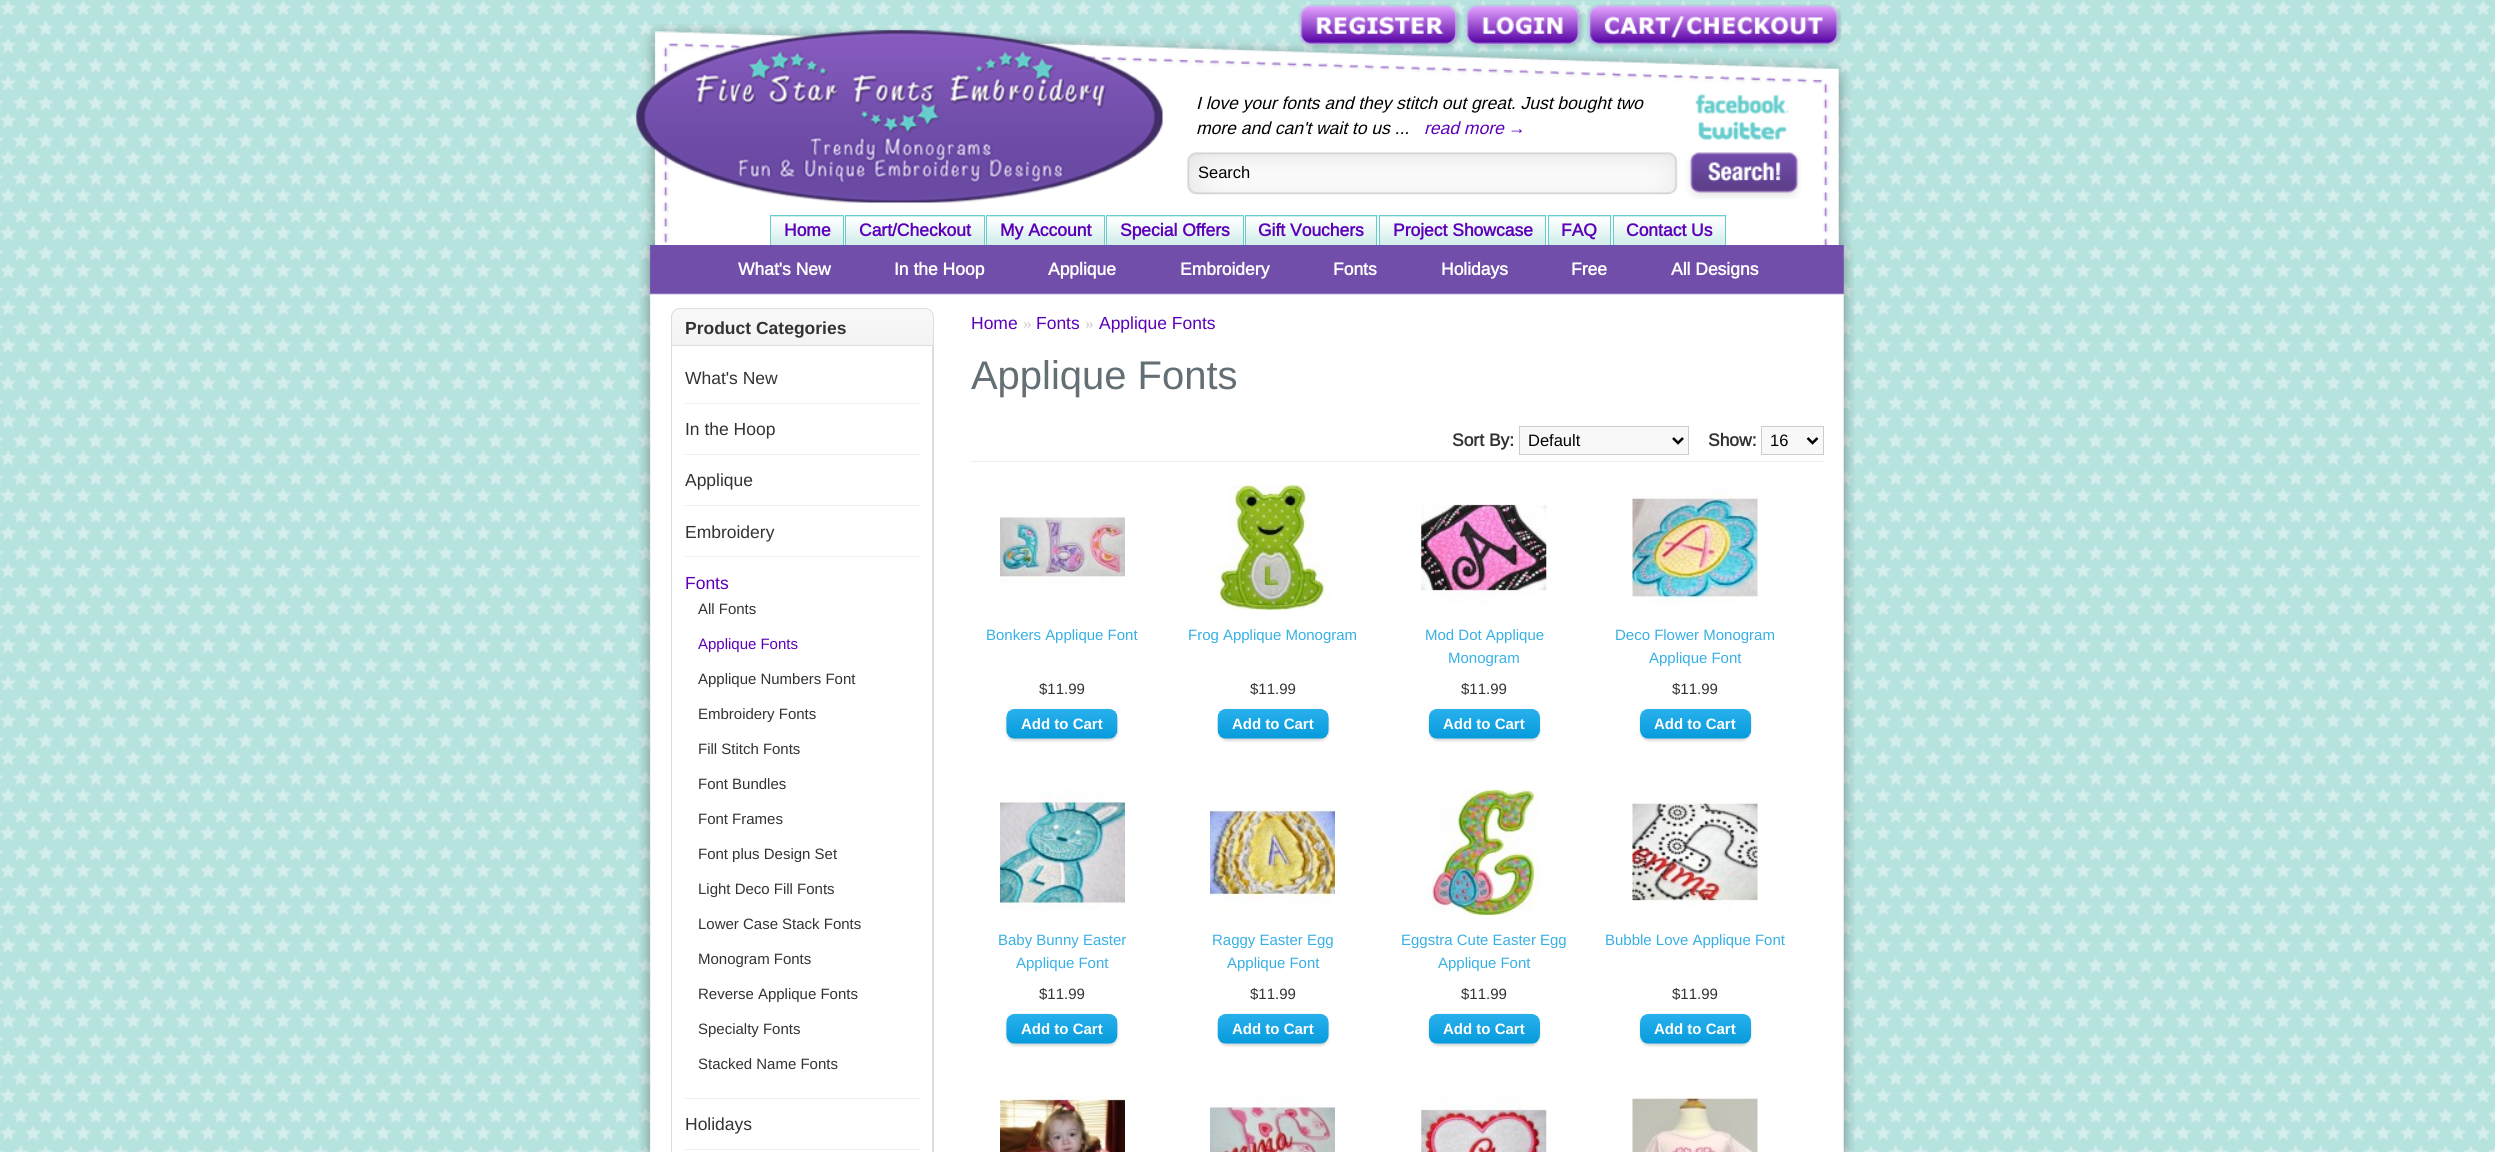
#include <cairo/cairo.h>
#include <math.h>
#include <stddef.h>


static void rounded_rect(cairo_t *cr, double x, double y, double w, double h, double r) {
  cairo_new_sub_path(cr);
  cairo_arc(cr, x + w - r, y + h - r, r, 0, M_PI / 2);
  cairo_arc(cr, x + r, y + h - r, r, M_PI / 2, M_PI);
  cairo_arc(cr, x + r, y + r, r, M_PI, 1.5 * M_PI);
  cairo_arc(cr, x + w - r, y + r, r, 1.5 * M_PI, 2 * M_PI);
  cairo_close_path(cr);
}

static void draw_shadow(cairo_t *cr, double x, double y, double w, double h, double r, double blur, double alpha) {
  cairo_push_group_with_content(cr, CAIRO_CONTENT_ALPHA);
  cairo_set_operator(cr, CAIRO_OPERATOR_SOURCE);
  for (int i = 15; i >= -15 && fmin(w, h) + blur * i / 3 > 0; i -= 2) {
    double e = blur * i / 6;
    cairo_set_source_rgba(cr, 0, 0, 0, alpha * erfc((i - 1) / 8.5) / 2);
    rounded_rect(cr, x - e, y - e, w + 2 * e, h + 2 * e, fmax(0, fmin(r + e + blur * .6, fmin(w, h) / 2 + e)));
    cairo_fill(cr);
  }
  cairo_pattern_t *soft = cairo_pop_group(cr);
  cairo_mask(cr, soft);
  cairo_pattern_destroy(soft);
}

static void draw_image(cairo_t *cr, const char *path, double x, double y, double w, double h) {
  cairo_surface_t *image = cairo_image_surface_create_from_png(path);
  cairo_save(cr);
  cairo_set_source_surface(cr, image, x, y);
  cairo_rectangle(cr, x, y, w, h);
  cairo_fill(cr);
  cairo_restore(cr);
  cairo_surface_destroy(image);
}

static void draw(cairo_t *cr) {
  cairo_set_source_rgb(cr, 1, 1, 1);
  cairo_paint(cr);
  draw_image(cr, "images/1.png", 0, 0, 2495, 1152);
  draw_image(cr, "images/2.png", 636, 24, 1215, 221);
  draw_image(cr, "images/3.png", 1298, 4, 163, 45);
  draw_image(cr, "images/4.png", 1464, 4, 120, 45);
  draw_image(cr, "images/5.png", 1587, 4, 255, 45);
  draw_image(cr, "images/6.png", 1695, 93, 94, 21);
  draw_image(cr, "images/7.png", 1698, 121, 89, 20);
  draw_image(cr, "images/8.png", 1187, 152, 614, 47);
  draw_image(cr, "images/9.png", 771, 215, 72, 30);
  cairo_set_source_rgb(cr, 102 / 255.0, 204 / 255.0, 204 / 255.0);
  cairo_rectangle(cr, 843, 215, 1, 30);
  cairo_fill(cr);
  cairo_rectangle(cr, 770, 215, 1, 30);
  cairo_fill(cr);
  draw_image(cr, "images/10.png", 846, 215, 138, 30);
  cairo_rectangle(cr, 984, 215, 1, 30);
  cairo_fill(cr);
  cairo_rectangle(cr, 845, 215, 1, 30);
  cairo_fill(cr);
  draw_image(cr, "images/11.png", 987, 215, 117, 30);
  cairo_rectangle(cr, 1104, 215, 1, 30);
  cairo_fill(cr);
  cairo_rectangle(cr, 986, 215, 1, 30);
  cairo_fill(cr);
  draw_image(cr, "images/12.png", 1107, 215, 136, 30);
  cairo_rectangle(cr, 1243, 215, 1, 30);
  cairo_fill(cr);
  cairo_rectangle(cr, 1106, 215, 1, 30);
  cairo_fill(cr);
  draw_image(cr, "images/13.png", 1246, 215, 132, 30);
  cairo_rectangle(cr, 1376, 215, 1, 30);
  cairo_fill(cr);
  cairo_rectangle(cr, 1245, 215, 1, 30);
  cairo_fill(cr);
  draw_image(cr, "images/14.png", 1378, 215, 169, 30);
  cairo_rectangle(cr, 1545, 215, 1, 30);
  cairo_fill(cr);
  cairo_rectangle(cr, 1379, 215, 1, 30);
  cairo_fill(cr);
  draw_image(cr, "images/15.png", 1547, 215, 65, 30);
  cairo_rectangle(cr, 1610, 215, 1, 30);
  cairo_fill(cr);
  cairo_rectangle(cr, 1548, 215, 1, 30);
  cairo_fill(cr);
  draw_image(cr, "images/16.png", 1612, 215, 115, 30);
  cairo_rectangle(cr, 1725, 215, 1, 30);
  cairo_fill(cr);
  cairo_rectangle(cr, 1613, 215, 1, 30);
  cairo_fill(cr);
  draw_image(cr, "images/17.png", 639, 245, 1215, 50);
  draw_image(cr, "images/18.png", 639, 295, 1216, 857);
  draw_image(cr, "images/19.png", 671, 309, 263, 36);
  cairo_new_path(cr);
  cairo_move_to(cr, 680, 308.5);
  cairo_line_to(cr, 925, 308.5);
  cairo_curve_to(cr, 929.5, 308.5, 933.5, 312.5, 933.5, 317);
  cairo_line_to(cr, 933.5, 345.5);
  cairo_line_to(cr, 671.5, 345.5);
  cairo_line_to(cr, 671.5, 317);
  cairo_curve_to(cr, 671.5, 312.5, 675.5, 308.5, 680, 308.5);
  cairo_close_path(cr);
  cairo_set_source_rgb(cr, 219 / 255.0, 222 / 255.0, 225 / 255.0);
  cairo_set_line_width(cr, 1);
  cairo_stroke(cr);
  cairo_set_fill_rule(cr, CAIRO_FILL_RULE_EVEN_ODD);
  cairo_new_path(cr);
  cairo_move_to(cr, 671, 346);
  cairo_line_to(cr, 934, 346);
  cairo_line_to(cr, 934, 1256);
  cairo_curve_to(cr, 934, 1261, 930, 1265, 925, 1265);
  cairo_line_to(cr, 680, 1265);
  cairo_curve_to(cr, 675, 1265, 671, 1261, 671, 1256);
  cairo_close_path(cr);
  cairo_move_to(cr, 672, 346);
  cairo_line_to(cr, 932, 346);
  cairo_line_to(cr, 932, 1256);
  cairo_curve_to(cr, 932, 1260, 929, 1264, 925, 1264);
  cairo_line_to(cr, 680, 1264);
  cairo_curve_to(cr, 676, 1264, 672, 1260, 672, 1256);
  cairo_close_path(cr);
  cairo_fill(cr);
  cairo_set_source_rgb(cr, 238 / 255.0, 238 / 255.0, 238 / 255.0);
  cairo_rectangle(cr, 685, 403, 235, 1);
  cairo_fill(cr);
  cairo_rectangle(cr, 685, 454, 235, 1);
  cairo_fill(cr);
  cairo_rectangle(cr, 685, 505, 235, 1);
  cairo_fill(cr);
  cairo_rectangle(cr, 685, 556, 235, 1);
  cairo_fill(cr);
  cairo_rectangle(cr, 685, 1098, 235, 1);
  cairo_fill(cr);
  cairo_rectangle(cr, 685, 1149, 235, 1);
  cairo_fill(cr);
  cairo_rectangle(cr, 971, 461, 853, 1);
  cairo_fill(cr);
  cairo_set_source_rgb(cr, 248 / 255.0, 248 / 255.0, 248 / 255.0);
  cairo_rectangle(cr, 1519.5, 426.5, 169, 28);
  cairo_fill_preserve(cr);
  cairo_set_source_rgb(cr, 204 / 255.0, 204 / 255.0, 204 / 255.0);
  cairo_stroke(cr);
  cairo_new_path(cr);
  cairo_move_to(cr, 1673, 438);
  cairo_line_to(cr, 1678, 443);
  cairo_line_to(cr, 1683, 438);
  cairo_set_source_rgb(cr, 0, 0, 0);
  cairo_set_line_width(cr, 2.5);
  cairo_stroke(cr);
  cairo_set_source_rgb(cr, 248 / 255.0, 248 / 255.0, 248 / 255.0);
  cairo_rectangle(cr, 1761.5, 426.5, 62, 28);
  cairo_fill_preserve(cr);
  cairo_set_source_rgb(cr, 204 / 255.0, 204 / 255.0, 204 / 255.0);
  cairo_set_line_width(cr, 1);
  cairo_stroke(cr);
  cairo_new_path(cr);
  cairo_move_to(cr, 1807.5, 438);
  cairo_line_to(cr, 1812.5, 443);
  cairo_line_to(cr, 1817.5, 438);
  cairo_set_source_rgb(cr, 0, 0, 0);
  cairo_set_line_width(cr, 2.5);
  cairo_stroke(cr);
  draw_image(cr, "images/20.png", 1000, 514, 125, 71);
  cairo_set_source_rgb(cr, 221 / 255.0, 221 / 255.0, 221 / 255.0);
  draw_shadow(cr, 1006, 711, 112, 30, 9, 1, 1);
  draw_image(cr, "images/21.png", 1006, 708, 112, 31);
  draw_image(cr, "images/22.png", 1210, 485, 120, 125);
  draw_shadow(cr, 1218, 711, 111, 30, 9, 1, 1);
  draw_image(cr, "images/23.png", 1217, 708, 112, 31);
  draw_image(cr, "images/24.png", 1421, 504, 126, 101);
  draw_shadow(cr, 1429, 711, 111, 30, 9, 1, 1);
  draw_image(cr, "images/25.png", 1428, 708, 112, 31);
  draw_image(cr, "images/26.png", 1632, 485, 126, 120);
  draw_shadow(cr, 1640, 711, 111, 30, 9, 1, 1);
  draw_image(cr, "images/27.png", 1640, 708, 112, 31);
  draw_image(cr, "images/28.png", 1000, 790, 125, 121);
  draw_shadow(cr, 1006, 1016, 112, 30, 9, 1, 1);
  draw_image(cr, "images/29.png", 1006, 1013, 112, 31);
  draw_image(cr, "images/30.png", 1210, 809, 125, 101);
  draw_shadow(cr, 1218, 1016, 111, 30, 9, 1, 1);
  draw_image(cr, "images/31.png", 1217, 1013, 112, 31);
  draw_image(cr, "images/32.png", 1423, 790, 118, 125);
  draw_shadow(cr, 1429, 1016, 111, 30, 9, 1, 1);
  draw_image(cr, "images/33.png", 1428, 1013, 112, 31);
  draw_image(cr, "images/34.png", 1632, 800, 126, 110);
  draw_shadow(cr, 1640, 1016, 111, 30, 9, 1, 1);
  draw_image(cr, "images/35.png", 1640, 1013, 112, 31);
  draw_image(cr, "images/36.png", 1000, 1095, 125, 57);
  draw_image(cr, "images/37.png", 1210, 1095, 125, 57);
  draw_image(cr, "images/38.png", 1421, 1095, 126, 57);
  draw_image(cr, "images/39.png", 1632, 1095, 126, 57);
  cairo_select_font_face(cr, "Liberation Sans", CAIRO_FONT_SLANT_ITALIC, CAIRO_FONT_WEIGHT_NORMAL);
  cairo_set_font_size(cr, 17.5);
  cairo_set_source_rgb(cr, 0, 0, 0);
  cairo_move_to(cr, 1196, 109);
  cairo_show_text(cr, "I love your fonts and they stitch out great. Just bought two");
  cairo_move_to(cr, 1196, 134);
  cairo_show_text(cr, "more and can't wait to us ...");
  cairo_set_source_rgb(cr, 93 / 255.0, 0, 186 / 255.0);
  cairo_move_to(cr, 1424, 134);
  cairo_show_text(cr, "read more");
  cairo_select_font_face(cr, "Liberation Serif", CAIRO_FONT_SLANT_ITALIC, CAIRO_FONT_WEIGHT_NORMAL);
  cairo_move_to(cr, 1508, 134);
  cairo_show_text(cr, "→");
  cairo_select_font_face(cr, "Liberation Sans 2", CAIRO_FONT_SLANT_NORMAL, CAIRO_FONT_WEIGHT_NORMAL);
  cairo_set_font_size(cr, 16.5);
  cairo_set_source_rgb(cr, 0, 0, 0);
  cairo_move_to(cr, 1198, 178);
  cairo_show_text(cr, "Search");
  cairo_select_font_face(cr, "Liberation Sans 2", CAIRO_FONT_SLANT_NORMAL, CAIRO_FONT_WEIGHT_BOLD);
  cairo_set_font_size(cr, 17.5);
  cairo_set_source_rgb(cr, 93 / 255.0, 0, 186 / 255.0);
  cairo_move_to(cr, 784, 236);
  cairo_show_text(cr, "Home");
  cairo_move_to(cr, 859, 236);
  cairo_show_text(cr, "Cart/Checkout");
  cairo_move_to(cr, 1000, 236);
  cairo_show_text(cr, "My Account");
  cairo_move_to(cr, 1120, 236);
  cairo_show_text(cr, "Special Offers");
  cairo_move_to(cr, 1258, 236);
  cairo_show_text(cr, "Gift Vouchers");
  cairo_move_to(cr, 1393, 236);
  cairo_show_text(cr, "Project Showcase");
  cairo_move_to(cr, 1561, 236);
  cairo_show_text(cr, "FAQ");
  cairo_move_to(cr, 1626, 236);
  cairo_show_text(cr, "Contact Us");
  cairo_set_source_rgb(cr, 1, 1, 1);
  cairo_move_to(cr, 738, 275);
  cairo_show_text(cr, "What's New");
  cairo_move_to(cr, 894, 275);
  cairo_show_text(cr, "In the Hoop");
  cairo_move_to(cr, 1048, 275);
  cairo_show_text(cr, "Applique");
  cairo_move_to(cr, 1180, 275);
  cairo_show_text(cr, "Embroidery");
  cairo_move_to(cr, 1333, 275);
  cairo_show_text(cr, "Fonts");
  cairo_move_to(cr, 1441, 275);
  cairo_show_text(cr, "Holidays");
  cairo_move_to(cr, 1571, 275);
  cairo_show_text(cr, "Free");
  cairo_move_to(cr, 1671, 275);
  cairo_show_text(cr, "All Designs");
  cairo_select_font_face(cr, "Liberation Sans", CAIRO_FONT_SLANT_NORMAL, CAIRO_FONT_WEIGHT_BOLD);
  cairo_set_source_rgb(cr, 51 / 255.0, 51 / 255.0, 51 / 255.0);
  cairo_move_to(cr, 685, 334);
  cairo_show_text(cr, "Product Categories");
  cairo_select_font_face(cr, "Liberation Sans", CAIRO_FONT_SLANT_NORMAL, CAIRO_FONT_WEIGHT_NORMAL);
  cairo_move_to(cr, 685, 384);
  cairo_show_text(cr, "What's New");
  cairo_move_to(cr, 685, 435);
  cairo_show_text(cr, "In the Hoop");
  cairo_move_to(cr, 685, 486);
  cairo_show_text(cr, "Applique");
  cairo_move_to(cr, 685, 538);
  cairo_show_text(cr, "Embroidery");
  cairo_set_source_rgb(cr, 93 / 255.0, 0, 186 / 255.0);
  cairo_move_to(cr, 685, 589);
  cairo_show_text(cr, "Fonts");
  cairo_set_font_size(cr, 15);
  cairo_set_source_rgb(cr, 51 / 255.0, 51 / 255.0, 51 / 255.0);
  cairo_move_to(cr, 698, 614);
  cairo_show_text(cr, "All Fonts");
  cairo_set_source_rgb(cr, 93 / 255.0, 0, 186 / 255.0);
  cairo_move_to(cr, 698, 649);
  cairo_show_text(cr, "Applique Fonts");
  cairo_set_source_rgb(cr, 51 / 255.0, 51 / 255.0, 51 / 255.0);
  cairo_move_to(cr, 698, 684);
  cairo_show_text(cr, "Applique Numbers Font");
  cairo_move_to(cr, 698, 719);
  cairo_show_text(cr, "Embroidery Fonts");
  cairo_move_to(cr, 698, 754);
  cairo_show_text(cr, "Fill Stitch Fonts");
  cairo_move_to(cr, 698, 789);
  cairo_show_text(cr, "Font Bundles");
  cairo_move_to(cr, 698, 824);
  cairo_show_text(cr, "Font Frames");
  cairo_move_to(cr, 698, 859);
  cairo_show_text(cr, "Font plus Design Set");
  cairo_move_to(cr, 698, 894);
  cairo_show_text(cr, "Light Deco Fill Fonts");
  cairo_move_to(cr, 698, 929);
  cairo_show_text(cr, "Lower Case Stack Fonts");
  cairo_move_to(cr, 698, 964);
  cairo_show_text(cr, "Monogram Fonts");
  cairo_move_to(cr, 698, 999);
  cairo_show_text(cr, "Reverse Applique Fonts");
  cairo_move_to(cr, 698, 1034);
  cairo_show_text(cr, "Specialty Fonts");
  cairo_move_to(cr, 698, 1069);
  cairo_show_text(cr, "Stacked Name Fonts");
  cairo_set_font_size(cr, 17.5);
  cairo_move_to(cr, 685, 1130);
  cairo_show_text(cr, "Holidays");
  cairo_set_source_rgb(cr, 93 / 255.0, 0, 186 / 255.0);
  cairo_move_to(cr, 971, 329);
  cairo_show_text(cr, "Home");
  cairo_select_font_face(cr, "Liberation Serif", CAIRO_FONT_SLANT_NORMAL, CAIRO_FONT_WEIGHT_NORMAL);
  cairo_set_source_rgb(cr, 204 / 255.0, 204 / 255.0, 204 / 255.0);
  cairo_move_to(cr, 1023, 329);
  cairo_show_text(cr, "»");
  cairo_select_font_face(cr, "Liberation Sans", CAIRO_FONT_SLANT_NORMAL, CAIRO_FONT_WEIGHT_NORMAL);
  cairo_set_source_rgb(cr, 93 / 255.0, 0, 186 / 255.0);
  cairo_move_to(cr, 1036, 329);
  cairo_show_text(cr, "Fonts");
  cairo_select_font_face(cr, "Liberation Serif", CAIRO_FONT_SLANT_NORMAL, CAIRO_FONT_WEIGHT_NORMAL);
  cairo_set_source_rgb(cr, 204 / 255.0, 204 / 255.0, 204 / 255.0);
  cairo_move_to(cr, 1085, 329);
  cairo_show_text(cr, "»");
  cairo_select_font_face(cr, "Liberation Sans", CAIRO_FONT_SLANT_NORMAL, CAIRO_FONT_WEIGHT_NORMAL);
  cairo_set_source_rgb(cr, 93 / 255.0, 0, 186 / 255.0);
  cairo_move_to(cr, 1099, 329);
  cairo_show_text(cr, "Applique Fonts");
  cairo_set_font_size(cr, 40);
  cairo_set_source_rgb(cr, 99 / 255.0, 110 / 255.0, 117 / 255.0);
  cairo_move_to(cr, 971, 389);
  cairo_show_text(cr, "Applique Fonts");
  cairo_select_font_face(cr, "Liberation Sans 2", CAIRO_FONT_SLANT_NORMAL, CAIRO_FONT_WEIGHT_BOLD);
  cairo_set_font_size(cr, 17.5);
  cairo_set_source_rgb(cr, 51 / 255.0, 51 / 255.0, 51 / 255.0);
  cairo_move_to(cr, 1452, 446);
  cairo_show_text(cr, "Sort By:");
  cairo_select_font_face(cr, "Liberation Sans 2", CAIRO_FONT_SLANT_NORMAL, CAIRO_FONT_WEIGHT_NORMAL);
  cairo_set_font_size(cr, 16.5);
  cairo_set_source_rgb(cr, 0, 0, 0);
  cairo_move_to(cr, 1528, 446);
  cairo_show_text(cr, "Default");
  cairo_select_font_face(cr, "Liberation Sans 2", CAIRO_FONT_SLANT_NORMAL, CAIRO_FONT_WEIGHT_BOLD);
  cairo_set_font_size(cr, 17.5);
  cairo_set_source_rgb(cr, 51 / 255.0, 51 / 255.0, 51 / 255.0);
  cairo_move_to(cr, 1708, 446);
  cairo_show_text(cr, "Show:");
  cairo_select_font_face(cr, "Liberation Sans 2", CAIRO_FONT_SLANT_NORMAL, CAIRO_FONT_WEIGHT_NORMAL);
  cairo_set_font_size(cr, 16.5);
  cairo_set_source_rgb(cr, 0, 0, 0);
  cairo_move_to(cr, 1770, 446);
  cairo_show_text(cr, "16");
  cairo_select_font_face(cr, "Liberation Sans", CAIRO_FONT_SLANT_NORMAL, CAIRO_FONT_WEIGHT_NORMAL);
  cairo_set_font_size(cr, 15);
  cairo_set_source_rgb(cr, 56 / 255.0, 176 / 255.0, 227 / 255.0);
  cairo_move_to(cr, 986, 640);
  cairo_show_text(cr, "Bonkers Applique Font");
  cairo_set_source_rgb(cr, 51 / 255.0, 51 / 255.0, 51 / 255.0);
  cairo_move_to(cr, 1039, 694);
  cairo_show_text(cr, "$11.99");
  cairo_select_font_face(cr, "Liberation Sans", CAIRO_FONT_SLANT_NORMAL, CAIRO_FONT_WEIGHT_BOLD);
  cairo_set_source_rgb(cr, 1, 1, 1);
  cairo_move_to(cr, 1021, 729);
  cairo_show_text(cr, "Add to Cart");
  cairo_select_font_face(cr, "Liberation Sans", CAIRO_FONT_SLANT_NORMAL, CAIRO_FONT_WEIGHT_NORMAL);
  cairo_set_source_rgb(cr, 56 / 255.0, 176 / 255.0, 227 / 255.0);
  cairo_move_to(cr, 1188, 640);
  cairo_show_text(cr, "Frog Applique Monogram");
  cairo_set_source_rgb(cr, 51 / 255.0, 51 / 255.0, 51 / 255.0);
  cairo_move_to(cr, 1250, 694);
  cairo_show_text(cr, "$11.99");
  cairo_select_font_face(cr, "Liberation Sans", CAIRO_FONT_SLANT_NORMAL, CAIRO_FONT_WEIGHT_BOLD);
  cairo_set_source_rgb(cr, 1, 1, 1);
  cairo_move_to(cr, 1232, 729);
  cairo_show_text(cr, "Add to Cart");
  cairo_select_font_face(cr, "Liberation Sans", CAIRO_FONT_SLANT_NORMAL, CAIRO_FONT_WEIGHT_NORMAL);
  cairo_set_source_rgb(cr, 56 / 255.0, 176 / 255.0, 227 / 255.0);
  cairo_move_to(cr, 1425, 640);
  cairo_show_text(cr, "Mod Dot Applique");
  cairo_move_to(cr, 1448, 663);
  cairo_show_text(cr, "Monogram");
  cairo_set_source_rgb(cr, 51 / 255.0, 51 / 255.0, 51 / 255.0);
  cairo_move_to(cr, 1461, 694);
  cairo_show_text(cr, "$11.99");
  cairo_select_font_face(cr, "Liberation Sans", CAIRO_FONT_SLANT_NORMAL, CAIRO_FONT_WEIGHT_BOLD);
  cairo_set_source_rgb(cr, 1, 1, 1);
  cairo_move_to(cr, 1443, 729);
  cairo_show_text(cr, "Add to Cart");
  cairo_select_font_face(cr, "Liberation Sans", CAIRO_FONT_SLANT_NORMAL, CAIRO_FONT_WEIGHT_NORMAL);
  cairo_set_source_rgb(cr, 56 / 255.0, 176 / 255.0, 227 / 255.0);
  cairo_move_to(cr, 1615, 640);
  cairo_show_text(cr, "Deco Flower Monogram");
  cairo_move_to(cr, 1649, 663);
  cairo_show_text(cr, "Applique Font");
  cairo_set_source_rgb(cr, 51 / 255.0, 51 / 255.0, 51 / 255.0);
  cairo_move_to(cr, 1672, 694);
  cairo_show_text(cr, "$11.99");
  cairo_select_font_face(cr, "Liberation Sans", CAIRO_FONT_SLANT_NORMAL, CAIRO_FONT_WEIGHT_BOLD);
  cairo_set_source_rgb(cr, 1, 1, 1);
  cairo_move_to(cr, 1654, 729);
  cairo_show_text(cr, "Add to Cart");
  cairo_select_font_face(cr, "Liberation Sans", CAIRO_FONT_SLANT_NORMAL, CAIRO_FONT_WEIGHT_NORMAL);
  cairo_set_source_rgb(cr, 56 / 255.0, 176 / 255.0, 227 / 255.0);
  cairo_move_to(cr, 998, 945);
  cairo_show_text(cr, "Baby Bunny Easter");
  cairo_move_to(cr, 1016, 968);
  cairo_show_text(cr, "Applique Font");
  cairo_set_source_rgb(cr, 51 / 255.0, 51 / 255.0, 51 / 255.0);
  cairo_move_to(cr, 1039, 999);
  cairo_show_text(cr, "$11.99");
  cairo_select_font_face(cr, "Liberation Sans", CAIRO_FONT_SLANT_NORMAL, CAIRO_FONT_WEIGHT_BOLD);
  cairo_set_source_rgb(cr, 1, 1, 1);
  cairo_move_to(cr, 1021, 1034);
  cairo_show_text(cr, "Add to Cart");
  cairo_select_font_face(cr, "Liberation Sans", CAIRO_FONT_SLANT_NORMAL, CAIRO_FONT_WEIGHT_NORMAL);
  cairo_set_source_rgb(cr, 56 / 255.0, 176 / 255.0, 227 / 255.0);
  cairo_move_to(cr, 1212, 945);
  cairo_show_text(cr, "Raggy Easter Egg");
  cairo_move_to(cr, 1227, 968);
  cairo_show_text(cr, "Applique Font");
  cairo_set_source_rgb(cr, 51 / 255.0, 51 / 255.0, 51 / 255.0);
  cairo_move_to(cr, 1250, 999);
  cairo_show_text(cr, "$11.99");
  cairo_select_font_face(cr, "Liberation Sans", CAIRO_FONT_SLANT_NORMAL, CAIRO_FONT_WEIGHT_BOLD);
  cairo_set_source_rgb(cr, 1, 1, 1);
  cairo_move_to(cr, 1232, 1034);
  cairo_show_text(cr, "Add to Cart");
  cairo_select_font_face(cr, "Liberation Sans", CAIRO_FONT_SLANT_NORMAL, CAIRO_FONT_WEIGHT_NORMAL);
  cairo_set_source_rgb(cr, 56 / 255.0, 176 / 255.0, 227 / 255.0);
  cairo_move_to(cr, 1401, 945);
  cairo_show_text(cr, "Eggstra Cute Easter Egg");
  cairo_move_to(cr, 1438, 968);
  cairo_show_text(cr, "Applique Font");
  cairo_set_source_rgb(cr, 51 / 255.0, 51 / 255.0, 51 / 255.0);
  cairo_move_to(cr, 1461, 999);
  cairo_show_text(cr, "$11.99");
  cairo_select_font_face(cr, "Liberation Sans", CAIRO_FONT_SLANT_NORMAL, CAIRO_FONT_WEIGHT_BOLD);
  cairo_set_source_rgb(cr, 1, 1, 1);
  cairo_move_to(cr, 1443, 1034);
  cairo_show_text(cr, "Add to Cart");
  cairo_select_font_face(cr, "Liberation Sans", CAIRO_FONT_SLANT_NORMAL, CAIRO_FONT_WEIGHT_NORMAL);
  cairo_set_source_rgb(cr, 56 / 255.0, 176 / 255.0, 227 / 255.0);
  cairo_move_to(cr, 1605, 945);
  cairo_show_text(cr, "Bubble Love Applique Font");
  cairo_set_source_rgb(cr, 51 / 255.0, 51 / 255.0, 51 / 255.0);
  cairo_move_to(cr, 1672, 999);
  cairo_show_text(cr, "$11.99");
  cairo_select_font_face(cr, "Liberation Sans", CAIRO_FONT_SLANT_NORMAL, CAIRO_FONT_WEIGHT_BOLD);
  cairo_set_source_rgb(cr, 1, 1, 1);
  cairo_move_to(cr, 1654, 1034);
  cairo_show_text(cr, "Add to Cart");
}

int main(void) {
  cairo_surface_t *surface = cairo_image_surface_create(CAIRO_FORMAT_RGB24, 2495, 1152);
  cairo_t *cr = cairo_create(surface);
  cairo_font_options_t *options = cairo_font_options_create();
  cairo_font_options_set_hint_metrics(options, CAIRO_HINT_METRICS_OFF);
  cairo_font_options_set_hint_style(options, CAIRO_HINT_STYLE_NONE);
  cairo_set_font_options(cr, options);
  cairo_set_miter_limit(cr, 4);
  draw(cr);
  cairo_surface_write_to_png(surface, "out.png");
  cairo_font_options_destroy(options);
  cairo_destroy(cr);
  cairo_surface_destroy(surface);
  return 0;
}
